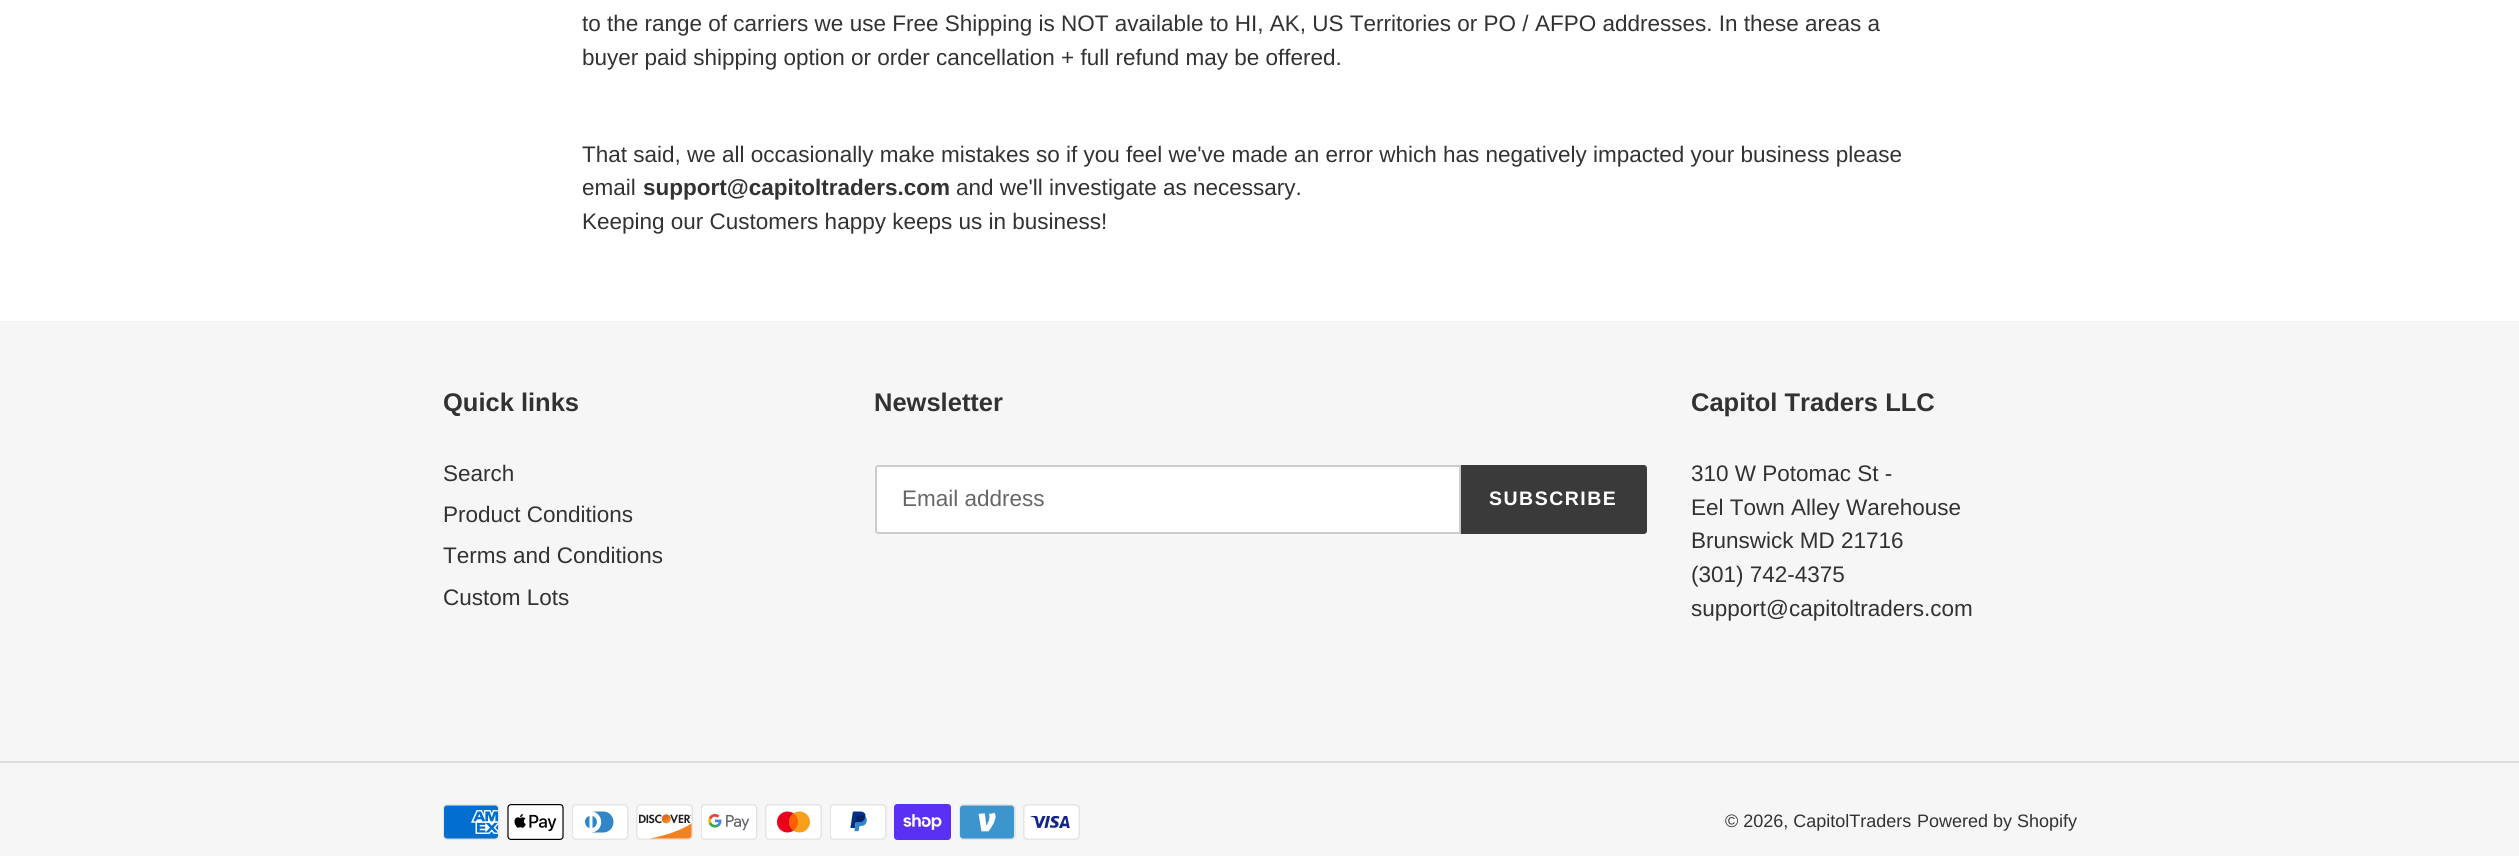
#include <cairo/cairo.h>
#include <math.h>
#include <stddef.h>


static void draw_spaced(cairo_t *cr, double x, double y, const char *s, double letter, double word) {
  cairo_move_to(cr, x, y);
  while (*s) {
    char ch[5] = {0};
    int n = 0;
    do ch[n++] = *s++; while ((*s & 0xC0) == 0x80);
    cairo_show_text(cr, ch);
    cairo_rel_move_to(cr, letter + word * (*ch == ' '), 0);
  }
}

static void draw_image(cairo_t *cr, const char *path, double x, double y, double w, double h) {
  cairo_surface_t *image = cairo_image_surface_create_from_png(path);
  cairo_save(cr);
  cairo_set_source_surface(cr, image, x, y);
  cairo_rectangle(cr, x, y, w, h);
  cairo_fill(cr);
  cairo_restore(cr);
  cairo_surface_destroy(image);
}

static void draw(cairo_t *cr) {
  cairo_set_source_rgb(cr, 1, 1, 1);
  cairo_paint(cr);
  cairo_set_source_rgb(cr, 246 / 255.0, 246 / 255.0, 246 / 255.0);
  cairo_rectangle(cr, 0, 321, 2519, 535);
  cairo_fill(cr);
  cairo_set_source_rgb(cr, 1, 1, 1);
  cairo_new_path(cr);
  cairo_move_to(cr, 878, 466);
  cairo_line_to(cr, 1460, 466);
  cairo_line_to(cr, 1460, 533);
  cairo_line_to(cr, 878, 533);
  cairo_curve_to(cr, 877, 533, 876, 532, 876, 531);
  cairo_line_to(cr, 876, 468);
  cairo_curve_to(cr, 876, 467, 877, 466, 878, 466);
  cairo_close_path(cr);
  cairo_fill_preserve(cr);
  cairo_set_source_rgb(cr, 204 / 255.0, 204 / 255.0, 204 / 255.0);
  cairo_stroke(cr);
  cairo_set_source_rgb(cr, 58 / 255.0, 58 / 255.0, 58 / 255.0);
  cairo_new_path(cr);
  cairo_move_to(cr, 1461, 465);
  cairo_line_to(cr, 1644, 465);
  cairo_curve_to(cr, 1645.5, 465, 1647, 466.5, 1647, 468);
  cairo_line_to(cr, 1647, 531);
  cairo_curve_to(cr, 1647, 532.5, 1645.5, 534, 1644, 534);
  cairo_line_to(cr, 1461, 534);
  cairo_close_path(cr);
  cairo_fill(cr);
  cairo_set_source_rgb(cr, 221 / 255.0, 221 / 255.0, 221 / 255.0);
  cairo_rectangle(cr, 0, 761, 2519, 2);
  cairo_fill(cr);
  draw_image(cr, "images/1.png", 443, 804, 57, 36);
  draw_image(cr, "images/2.png", 507, 804, 57, 36);
  draw_image(cr, "images/3.png", 572, 804, 57, 36);
  draw_image(cr, "images/4.png", 636, 804, 57, 36);
  draw_image(cr, "images/5.png", 701, 804, 57, 36);
  draw_image(cr, "images/6.png", 765, 804, 57, 36);
  draw_image(cr, "images/7.png", 830, 804, 57, 36);
  draw_image(cr, "images/8.png", 894, 804, 57, 36);
  draw_image(cr, "images/9.png", 959, 804, 57, 36);
  draw_image(cr, "images/10.png", 1023, 804, 57, 36);
  cairo_select_font_face(cr, "Liberation Sans", CAIRO_FONT_SLANT_NORMAL, CAIRO_FONT_WEIGHT_NORMAL);
  cairo_set_font_size(cr, 22.5);
  cairo_set_source_rgb(cr, 51 / 255.0, 50 / 255.0, 50 / 255.0);
  cairo_move_to(cr, 582, 31);
  cairo_show_text(cr, "to the range of carriers we use Free Shipping is NOT available to HI, AK, US Territories or PO / AFPO addresses. In these areas a");
  cairo_move_to(cr, 582, 65);
  cairo_show_text(cr, "buyer paid shipping option or order cancellation + full refund may be offered.");
  cairo_move_to(cr, 582, 162);
  cairo_show_text(cr, "That said, we all occasionally make mistakes so if you feel we've made an error which has negatively impacted your business please");
  cairo_move_to(cr, 582, 195);
  cairo_show_text(cr, "email");
  cairo_select_font_face(cr, "Liberation Sans", CAIRO_FONT_SLANT_NORMAL, CAIRO_FONT_WEIGHT_BOLD);
  cairo_move_to(cr, 643, 195);
  cairo_show_text(cr, "support@capitoltraders.com");
  cairo_select_font_face(cr, "Liberation Sans", CAIRO_FONT_SLANT_NORMAL, CAIRO_FONT_WEIGHT_NORMAL);
  cairo_move_to(cr, 956, 195);
  cairo_show_text(cr, "and we'll investigate as necessary.");
  cairo_move_to(cr, 582, 229);
  cairo_show_text(cr, "Keeping our Customers happy keeps us in business!");
  cairo_select_font_face(cr, "Liberation Sans", CAIRO_FONT_SLANT_NORMAL, CAIRO_FONT_WEIGHT_BOLD);
  cairo_set_font_size(cr, 25.5);
  cairo_move_to(cr, 443, 411);
  cairo_show_text(cr, "Quick links");
  cairo_select_font_face(cr, "Liberation Sans", CAIRO_FONT_SLANT_NORMAL, CAIRO_FONT_WEIGHT_NORMAL);
  cairo_set_font_size(cr, 22.5);
  cairo_move_to(cr, 443, 481);
  cairo_show_text(cr, "Search");
  cairo_move_to(cr, 443, 522);
  cairo_show_text(cr, "Product Conditions");
  cairo_move_to(cr, 443, 563);
  cairo_show_text(cr, "Terms and Conditions");
  cairo_move_to(cr, 443, 605);
  cairo_show_text(cr, "Custom Lots");
  cairo_select_font_face(cr, "Liberation Sans", CAIRO_FONT_SLANT_NORMAL, CAIRO_FONT_WEIGHT_BOLD);
  cairo_set_font_size(cr, 25.5);
  cairo_move_to(cr, 874, 411);
  cairo_show_text(cr, "Newsletter");
  cairo_select_font_face(cr, "Liberation Sans", CAIRO_FONT_SLANT_NORMAL, CAIRO_FONT_WEIGHT_NORMAL);
  cairo_set_font_size(cr, 22.5);
  cairo_set_source_rgb(cr, 102 / 255.0, 102 / 255.0, 102 / 255.0);
  cairo_move_to(cr, 902, 506);
  cairo_show_text(cr, "Email address");
  cairo_select_font_face(cr, "Liberation Sans", CAIRO_FONT_SLANT_NORMAL, CAIRO_FONT_WEIGHT_BOLD);
  cairo_set_font_size(cr, 19.5);
  cairo_set_source_rgb(cr, 1, 1, 1);
  draw_spaced(cr, 1489, 505, "SUBSCRIBE", 1.5, 0);
  cairo_set_font_size(cr, 25.5);
  cairo_set_source_rgb(cr, 51 / 255.0, 50 / 255.0, 50 / 255.0);
  cairo_move_to(cr, 1691, 411);
  cairo_show_text(cr, "Capitol Traders LLC");
  cairo_select_font_face(cr, "Liberation Sans", CAIRO_FONT_SLANT_NORMAL, CAIRO_FONT_WEIGHT_NORMAL);
  cairo_set_font_size(cr, 22.5);
  cairo_move_to(cr, 1691, 481);
  cairo_show_text(cr, "310 W Potomac St -");
  cairo_move_to(cr, 1691, 515);
  cairo_show_text(cr, "Eel Town Alley Warehouse");
  cairo_move_to(cr, 1691, 548);
  cairo_show_text(cr, "Brunswick MD 21716");
  cairo_move_to(cr, 1691, 582);
  cairo_show_text(cr, "(301) 742-4375");
  cairo_move_to(cr, 1691, 616);
  cairo_show_text(cr, "support@capitoltraders.com");
  cairo_set_font_size(cr, 18);
  cairo_move_to(cr, 1725, 827);
  cairo_show_text(cr, "© 2026, CapitolTraders");
  cairo_move_to(cr, 1917, 827);
  cairo_show_text(cr, "Powered by Shopify");
}

int main(void) {
  cairo_surface_t *surface = cairo_image_surface_create(CAIRO_FORMAT_RGB24, 2519, 856);
  cairo_t *cr = cairo_create(surface);
  cairo_font_options_t *options = cairo_font_options_create();
  cairo_font_options_set_hint_metrics(options, CAIRO_HINT_METRICS_OFF);
  cairo_font_options_set_hint_style(options, CAIRO_HINT_STYLE_NONE);
  cairo_set_font_options(cr, options);
  cairo_set_miter_limit(cr, 4);
  draw(cr);
  cairo_surface_write_to_png(surface, "out.png");
  cairo_font_options_destroy(options);
  cairo_destroy(cr);
  cairo_surface_destroy(surface);
  return 0;
}
